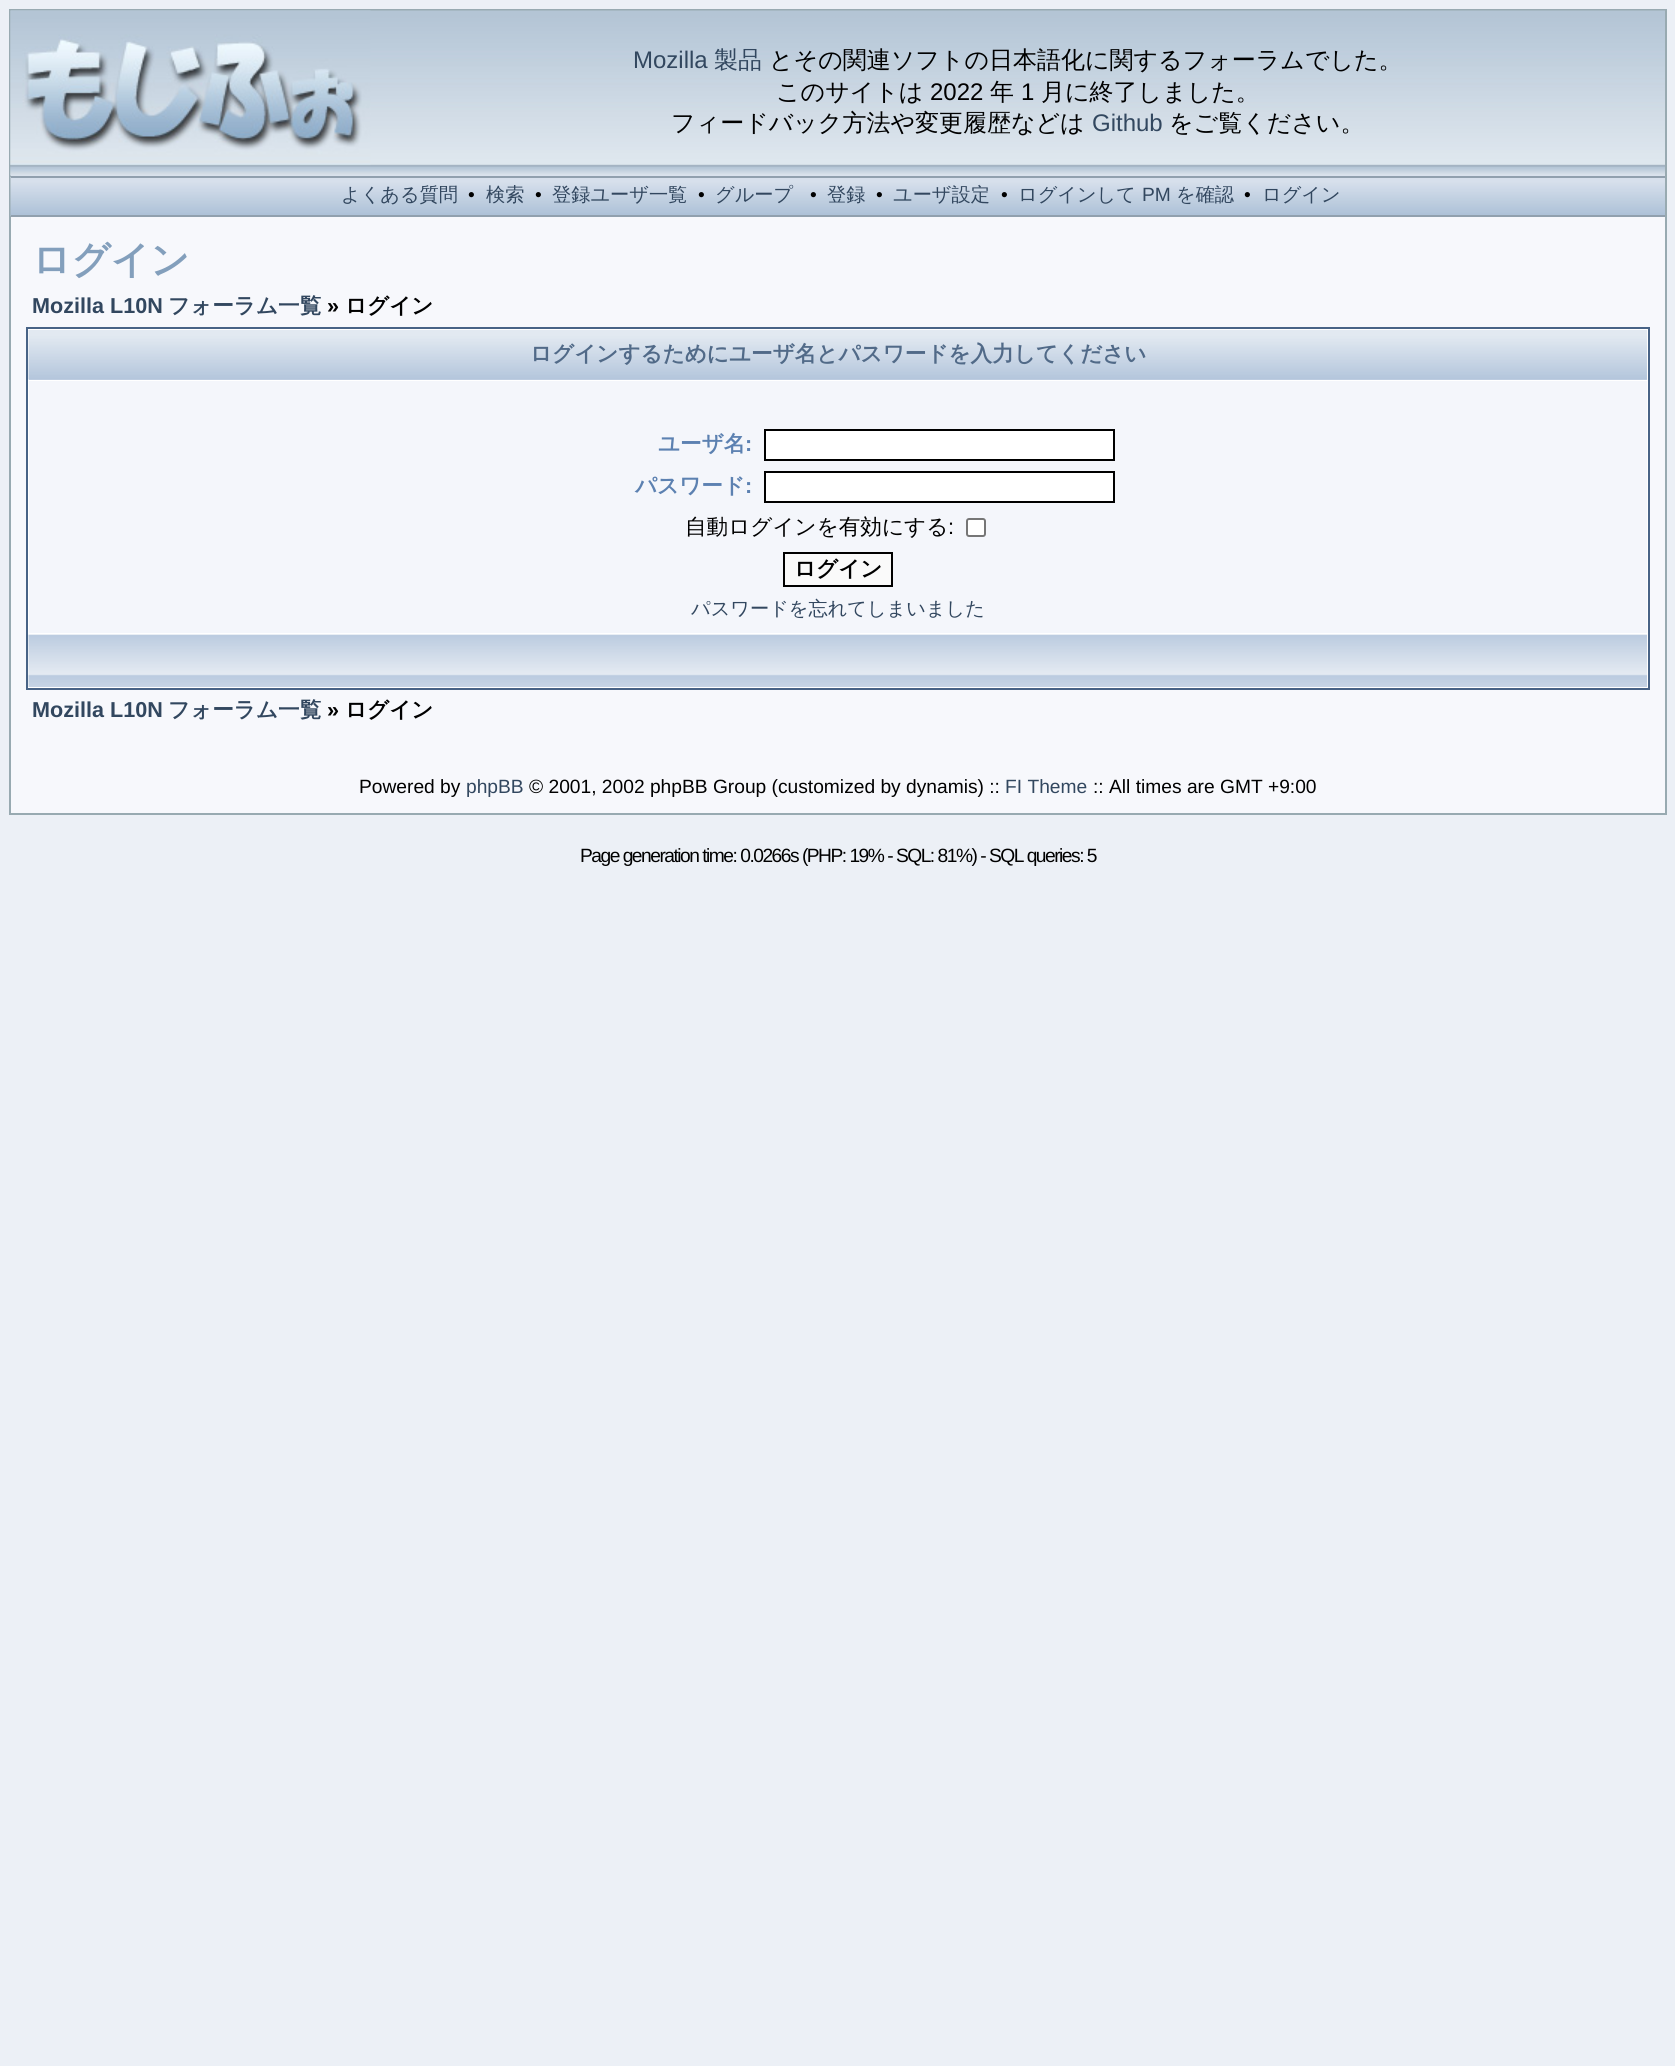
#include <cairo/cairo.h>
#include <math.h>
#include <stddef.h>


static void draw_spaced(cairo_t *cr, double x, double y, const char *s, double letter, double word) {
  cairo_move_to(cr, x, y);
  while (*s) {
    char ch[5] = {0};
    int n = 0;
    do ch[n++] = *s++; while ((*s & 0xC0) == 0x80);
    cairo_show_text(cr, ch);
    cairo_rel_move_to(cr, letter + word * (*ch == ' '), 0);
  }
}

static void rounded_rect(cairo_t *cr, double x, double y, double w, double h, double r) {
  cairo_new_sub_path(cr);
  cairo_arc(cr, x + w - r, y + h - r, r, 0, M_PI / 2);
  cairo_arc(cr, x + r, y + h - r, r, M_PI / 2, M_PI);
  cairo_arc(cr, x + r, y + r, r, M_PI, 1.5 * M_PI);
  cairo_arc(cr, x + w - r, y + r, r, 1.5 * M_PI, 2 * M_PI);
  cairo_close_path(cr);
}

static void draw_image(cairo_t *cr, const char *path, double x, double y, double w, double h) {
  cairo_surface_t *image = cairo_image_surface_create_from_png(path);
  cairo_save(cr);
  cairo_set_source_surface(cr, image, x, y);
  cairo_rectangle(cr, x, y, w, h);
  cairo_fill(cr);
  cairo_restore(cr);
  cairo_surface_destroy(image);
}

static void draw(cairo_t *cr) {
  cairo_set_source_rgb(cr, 236 / 255.0, 240 / 255.0, 246 / 255.0);
  cairo_paint(cr);
  cairo_set_source_rgb(cr, 247 / 255.0, 248 / 255.0, 252 / 255.0);
  cairo_rectangle(cr, 11, 217, 1654, 596);
  cairo_fill(cr);
  cairo_rectangle(cr, 10, 10, 1656, 804);
  cairo_set_source_rgb(cr, 152 / 255.0, 170 / 255.0, 177 / 255.0);
  cairo_stroke(cr);
  cairo_set_source_rgb(cr, 219 / 255.0, 227 / 255.0, 238 / 255.0);
  cairo_rectangle(cr, 11, 175, 1654, 1);
  cairo_fill(cr);
  draw_image(cr, "images/1.png", 10, 10, 1655, 166);
  draw_image(cr, "images/2.png", 10, 10, 361, 166);
  draw_image(cr, "images/3.png", 10, 177, 1655, 39);
  cairo_set_source_rgb(cr, 145 / 255.0, 160 / 255.0, 174 / 255.0);
  cairo_rectangle(cr, 11, 176, 1654, 2);
  cairo_fill(cr);
  cairo_rectangle(cr, 11, 215, 1654, 2);
  cairo_fill(cr);
  cairo_set_source_rgb(cr, 1, 1, 1);
  cairo_rectangle(cr, 27, 328, 1622, 361);
  cairo_fill_preserve(cr);
  cairo_set_source_rgb(cr, 72 / 255.0, 99 / 255.0, 134 / 255.0);
  cairo_stroke(cr);
  cairo_set_source_rgb(cr, 198 / 255.0, 211 / 255.0, 228 / 255.0);
  cairo_rectangle(cr, 29, 379, 1618, 1);
  cairo_fill(cr);
  draw_image(cr, "images/4.png", 28, 330, 1619, 50);
  cairo_set_source_rgb(cr, 244 / 255.0, 246 / 255.0, 251 / 255.0);
  cairo_rectangle(cr, 29, 381, 1618, 252);
  cairo_fill(cr);
  cairo_set_source_rgb(cr, 1, 1, 1);
  cairo_rectangle(cr, 765, 430, 349, 30);
  cairo_fill_preserve(cr);
  cairo_set_source_rgb(cr, 0, 0, 0);
  cairo_stroke(cr);
  cairo_set_source_rgb(cr, 1, 1, 1);
  cairo_rectangle(cr, 765, 472, 349, 30);
  cairo_fill_preserve(cr);
  cairo_set_source_rgb(cr, 0, 0, 0);
  cairo_stroke(cr);
  cairo_set_source_rgb(cr, 1, 1, 1);
  rounded_rect(cr, 967, 519, 18, 17, 2);
  cairo_fill_preserve(cr);
  cairo_set_source_rgb(cr, 118 / 255.0, 118 / 255.0, 118 / 255.0);
  cairo_stroke(cr);
  cairo_set_source_rgb(cr, 250 / 255.0, 250 / 255.0, 250 / 255.0);
  cairo_rectangle(cr, 784, 553, 108, 33);
  cairo_fill_preserve(cr);
  cairo_set_source_rgb(cr, 0, 0, 0);
  cairo_stroke(cr);
  draw_image(cr, "images/5.png", 28, 634, 1619, 53);
  cairo_select_font_face(cr, "Liberation Sans", CAIRO_FONT_SLANT_NORMAL, CAIRO_FONT_WEIGHT_NORMAL);
  cairo_set_font_size(cr, 24);
  cairo_set_source_rgb(cr, 50 / 255.0, 71 / 255.0, 95 / 255.0);
  cairo_move_to(cr, 633, 68);
  cairo_show_text(cr, "Mozilla");
  cairo_select_font_face(cr, "WenQuanYi Zen Hei Medium", CAIRO_FONT_SLANT_NORMAL, CAIRO_FONT_WEIGHT_NORMAL);
  cairo_move_to(cr, 714, 68);
  cairo_show_text(cr, "製品");
  cairo_set_source_rgb(cr, 0, 0, 0);
  cairo_move_to(cr, 769, 68);
  cairo_show_text(cr, "とその関連ソフトの日本語化に関するフォーラムでした。");
  cairo_move_to(cr, 776, 100);
  cairo_show_text(cr, "このサイトは");
  cairo_select_font_face(cr, "Liberation Sans", CAIRO_FONT_SLANT_NORMAL, CAIRO_FONT_WEIGHT_NORMAL);
  cairo_move_to(cr, 930, 100);
  cairo_show_text(cr, "2022");
  cairo_select_font_face(cr, "WenQuanYi Zen Hei Medium", CAIRO_FONT_SLANT_NORMAL, CAIRO_FONT_WEIGHT_NORMAL);
  cairo_move_to(cr, 990, 100);
  cairo_show_text(cr, "年");
  cairo_select_font_face(cr, "Liberation Sans", CAIRO_FONT_SLANT_NORMAL, CAIRO_FONT_WEIGHT_NORMAL);
  cairo_move_to(cr, 1021, 100);
  cairo_show_text(cr, "1");
  cairo_select_font_face(cr, "WenQuanYi Zen Hei Medium", CAIRO_FONT_SLANT_NORMAL, CAIRO_FONT_WEIGHT_NORMAL);
  cairo_move_to(cr, 1041, 100);
  cairo_show_text(cr, "月に終了しました。");
  cairo_move_to(cr, 671, 131);
  cairo_show_text(cr, "フィードバック方法や変更履歴などは");
  cairo_select_font_face(cr, "Liberation Sans", CAIRO_FONT_SLANT_NORMAL, CAIRO_FONT_WEIGHT_NORMAL);
  cairo_set_source_rgb(cr, 50 / 255.0, 71 / 255.0, 95 / 255.0);
  cairo_move_to(cr, 1092, 131);
  cairo_show_text(cr, "Github");
  cairo_select_font_face(cr, "WenQuanYi Zen Hei Medium", CAIRO_FONT_SLANT_NORMAL, CAIRO_FONT_WEIGHT_NORMAL);
  cairo_set_source_rgb(cr, 0, 0, 0);
  cairo_move_to(cr, 1169, 131);
  cairo_show_text(cr, "をご覧ください。");
  cairo_set_font_size(cr, 19.2);
  cairo_set_source_rgb(cr, 50 / 255.0, 71 / 255.0, 95 / 255.0);
  cairo_move_to(cr, 341, 201);
  cairo_show_text(cr, "よくある質問");
  cairo_select_font_face(cr, "Liberation Sans", CAIRO_FONT_SLANT_NORMAL, CAIRO_FONT_WEIGHT_NORMAL);
  cairo_set_source_rgb(cr, 0, 0, 0);
  cairo_move_to(cr, 468, 201);
  cairo_show_text(cr, "•");
  cairo_select_font_face(cr, "WenQuanYi Zen Hei Medium", CAIRO_FONT_SLANT_NORMAL, CAIRO_FONT_WEIGHT_NORMAL);
  cairo_set_source_rgb(cr, 50 / 255.0, 71 / 255.0, 95 / 255.0);
  cairo_move_to(cr, 486, 201);
  cairo_show_text(cr, "検索");
  cairo_select_font_face(cr, "Liberation Sans", CAIRO_FONT_SLANT_NORMAL, CAIRO_FONT_WEIGHT_NORMAL);
  cairo_set_source_rgb(cr, 0, 0, 0);
  cairo_move_to(cr, 535, 201);
  cairo_show_text(cr, "•");
  cairo_select_font_face(cr, "WenQuanYi Zen Hei Medium", CAIRO_FONT_SLANT_NORMAL, CAIRO_FONT_WEIGHT_NORMAL);
  cairo_set_source_rgb(cr, 50 / 255.0, 71 / 255.0, 95 / 255.0);
  cairo_move_to(cr, 552, 201);
  cairo_show_text(cr, "登録ユーザ一覧");
  cairo_select_font_face(cr, "Liberation Sans", CAIRO_FONT_SLANT_NORMAL, CAIRO_FONT_WEIGHT_NORMAL);
  cairo_set_source_rgb(cr, 0, 0, 0);
  cairo_move_to(cr, 698, 201);
  cairo_show_text(cr, "•");
  cairo_select_font_face(cr, "WenQuanYi Zen Hei Medium", CAIRO_FONT_SLANT_NORMAL, CAIRO_FONT_WEIGHT_NORMAL);
  cairo_set_source_rgb(cr, 50 / 255.0, 71 / 255.0, 95 / 255.0);
  cairo_move_to(cr, 715, 201);
  cairo_show_text(cr, "グループ");
  cairo_select_font_face(cr, "Liberation Sans", CAIRO_FONT_SLANT_NORMAL, CAIRO_FONT_WEIGHT_NORMAL);
  cairo_set_source_rgb(cr, 0, 0, 0);
  cairo_move_to(cr, 810, 201);
  cairo_show_text(cr, "•");
  cairo_select_font_face(cr, "WenQuanYi Zen Hei Medium", CAIRO_FONT_SLANT_NORMAL, CAIRO_FONT_WEIGHT_NORMAL);
  cairo_set_source_rgb(cr, 50 / 255.0, 71 / 255.0, 95 / 255.0);
  cairo_move_to(cr, 827, 201);
  cairo_show_text(cr, "登録");
  cairo_select_font_face(cr, "Liberation Sans", CAIRO_FONT_SLANT_NORMAL, CAIRO_FONT_WEIGHT_NORMAL);
  cairo_set_source_rgb(cr, 0, 0, 0);
  cairo_move_to(cr, 876, 201);
  cairo_show_text(cr, "•");
  cairo_select_font_face(cr, "WenQuanYi Zen Hei Medium", CAIRO_FONT_SLANT_NORMAL, CAIRO_FONT_WEIGHT_NORMAL);
  cairo_set_source_rgb(cr, 50 / 255.0, 71 / 255.0, 95 / 255.0);
  cairo_move_to(cr, 893, 201);
  cairo_show_text(cr, "ユーザ設定");
  cairo_select_font_face(cr, "Liberation Sans", CAIRO_FONT_SLANT_NORMAL, CAIRO_FONT_WEIGHT_NORMAL);
  cairo_set_source_rgb(cr, 0, 0, 0);
  cairo_move_to(cr, 1001, 201);
  cairo_show_text(cr, "•");
  cairo_select_font_face(cr, "WenQuanYi Zen Hei Medium", CAIRO_FONT_SLANT_NORMAL, CAIRO_FONT_WEIGHT_NORMAL);
  cairo_set_source_rgb(cr, 50 / 255.0, 71 / 255.0, 95 / 255.0);
  cairo_move_to(cr, 1018, 201);
  cairo_show_text(cr, "ログインして");
  cairo_select_font_face(cr, "Liberation Sans", CAIRO_FONT_SLANT_NORMAL, CAIRO_FONT_WEIGHT_NORMAL);
  cairo_move_to(cr, 1142, 201);
  cairo_show_text(cr, "PM");
  cairo_select_font_face(cr, "WenQuanYi Zen Hei Medium", CAIRO_FONT_SLANT_NORMAL, CAIRO_FONT_WEIGHT_NORMAL);
  cairo_move_to(cr, 1176, 201);
  cairo_show_text(cr, "を確認");
  cairo_select_font_face(cr, "Liberation Sans", CAIRO_FONT_SLANT_NORMAL, CAIRO_FONT_WEIGHT_NORMAL);
  cairo_set_source_rgb(cr, 0, 0, 0);
  cairo_move_to(cr, 1244, 201);
  cairo_show_text(cr, "•");
  cairo_select_font_face(cr, "WenQuanYi Zen Hei Medium", CAIRO_FONT_SLANT_NORMAL, CAIRO_FONT_WEIGHT_NORMAL);
  cairo_set_source_rgb(cr, 50 / 255.0, 71 / 255.0, 95 / 255.0);
  cairo_move_to(cr, 1262, 201);
  cairo_show_text(cr, "ログイン");
  cairo_select_font_face(cr, "WenQuanYi Zen Hei", CAIRO_FONT_SLANT_NORMAL, CAIRO_FONT_WEIGHT_BOLD);
  cairo_set_font_size(cr, 38.5);
  cairo_set_source_rgb(cr, 131 / 255.0, 159 / 255.0, 188 / 255.0);
  cairo_move_to(cr, 32, 273);
  cairo_show_text(cr, "ログイン");
  cairo_select_font_face(cr, "Liberation Sans", CAIRO_FONT_SLANT_NORMAL, CAIRO_FONT_WEIGHT_BOLD);
  cairo_set_font_size(cr, 21.6);
  cairo_set_source_rgb(cr, 50 / 255.0, 71 / 255.0, 95 / 255.0);
  cairo_move_to(cr, 32, 313);
  cairo_show_text(cr, "Mozilla L10N");
  cairo_select_font_face(cr, "WenQuanYi Zen Hei", CAIRO_FONT_SLANT_NORMAL, CAIRO_FONT_WEIGHT_BOLD);
  cairo_move_to(cr, 168, 313);
  cairo_show_text(cr, "フォーラム一覧");
  cairo_select_font_face(cr, "Liberation Sans", CAIRO_FONT_SLANT_NORMAL, CAIRO_FONT_WEIGHT_BOLD);
  cairo_set_source_rgb(cr, 0, 0, 0);
  cairo_move_to(cr, 327, 313);
  cairo_show_text(cr, "»");
  cairo_select_font_face(cr, "WenQuanYi Zen Hei", CAIRO_FONT_SLANT_NORMAL, CAIRO_FONT_WEIGHT_BOLD);
  cairo_move_to(cr, 345, 313);
  cairo_show_text(cr, "ログイン");
  cairo_set_source_rgb(cr, 81 / 255.0, 106 / 255.0, 136 / 255.0);
  cairo_move_to(cr, 530, 361);
  cairo_show_text(cr, "ログインするためにユーザ名とパスワードを入力してください");
  cairo_set_source_rgb(cr, 92 / 255.0, 129 / 255.0, 177 / 255.0);
  cairo_move_to(cr, 658, 451);
  cairo_show_text(cr, "ユーザ名");
  cairo_select_font_face(cr, "Liberation Sans", CAIRO_FONT_SLANT_NORMAL, CAIRO_FONT_WEIGHT_BOLD);
  cairo_move_to(cr, 745, 451);
  cairo_show_text(cr, ":");
  cairo_select_font_face(cr, "WenQuanYi Zen Hei", CAIRO_FONT_SLANT_NORMAL, CAIRO_FONT_WEIGHT_BOLD);
  cairo_move_to(cr, 635, 493);
  cairo_show_text(cr, "パスワード");
  cairo_select_font_face(cr, "Liberation Sans", CAIRO_FONT_SLANT_NORMAL, CAIRO_FONT_WEIGHT_BOLD);
  cairo_move_to(cr, 745, 493);
  cairo_show_text(cr, ":");
  cairo_select_font_face(cr, "WenQuanYi Zen Hei Medium", CAIRO_FONT_SLANT_NORMAL, CAIRO_FONT_WEIGHT_NORMAL);
  cairo_set_source_rgb(cr, 0, 0, 0);
  cairo_move_to(cr, 685, 534);
  cairo_show_text(cr, "自動ログインを有効にする");
  cairo_select_font_face(cr, "Liberation Sans", CAIRO_FONT_SLANT_NORMAL, CAIRO_FONT_WEIGHT_NORMAL);
  cairo_move_to(cr, 948, 534);
  cairo_show_text(cr, ":");
  cairo_select_font_face(cr, "WenQuanYi Zen Hei", CAIRO_FONT_SLANT_NORMAL, CAIRO_FONT_WEIGHT_BOLD);
  cairo_move_to(cr, 794, 576);
  cairo_show_text(cr, "ログイン");
  cairo_select_font_face(cr, "WenQuanYi Zen Hei Medium", CAIRO_FONT_SLANT_NORMAL, CAIRO_FONT_WEIGHT_NORMAL);
  cairo_set_font_size(cr, 19.2);
  cairo_set_source_rgb(cr, 50 / 255.0, 71 / 255.0, 95 / 255.0);
  cairo_move_to(cr, 691, 615);
  cairo_show_text(cr, "パスワードを忘れてしまいました");
  cairo_select_font_face(cr, "Liberation Sans", CAIRO_FONT_SLANT_NORMAL, CAIRO_FONT_WEIGHT_BOLD);
  cairo_set_font_size(cr, 21.6);
  cairo_move_to(cr, 32, 717);
  cairo_show_text(cr, "Mozilla L10N");
  cairo_select_font_face(cr, "WenQuanYi Zen Hei", CAIRO_FONT_SLANT_NORMAL, CAIRO_FONT_WEIGHT_BOLD);
  cairo_move_to(cr, 168, 717);
  cairo_show_text(cr, "フォーラム一覧");
  cairo_select_font_face(cr, "Liberation Sans", CAIRO_FONT_SLANT_NORMAL, CAIRO_FONT_WEIGHT_BOLD);
  cairo_set_source_rgb(cr, 0, 0, 0);
  cairo_move_to(cr, 327, 717);
  cairo_show_text(cr, "»");
  cairo_select_font_face(cr, "WenQuanYi Zen Hei", CAIRO_FONT_SLANT_NORMAL, CAIRO_FONT_WEIGHT_BOLD);
  cairo_move_to(cr, 345, 717);
  cairo_show_text(cr, "ログイン");
  cairo_select_font_face(cr, "Liberation Sans", CAIRO_FONT_SLANT_NORMAL, CAIRO_FONT_WEIGHT_NORMAL);
  cairo_set_font_size(cr, 19.2);
  cairo_move_to(cr, 359, 793);
  cairo_show_text(cr, "Powered by");
  cairo_set_source_rgb(cr, 50 / 255.0, 71 / 255.0, 95 / 255.0);
  cairo_move_to(cr, 466, 793);
  cairo_show_text(cr, "phpBB");
  cairo_set_source_rgb(cr, 0, 0, 0);
  cairo_move_to(cr, 529, 793);
  cairo_show_text(cr, "© 2001, 2002 phpBB Group (customized by dynamis) ::");
  cairo_set_source_rgb(cr, 50 / 255.0, 71 / 255.0, 95 / 255.0);
  cairo_move_to(cr, 1005, 793);
  cairo_show_text(cr, "FI Theme");
  cairo_set_source_rgb(cr, 0, 0, 0);
  cairo_move_to(cr, 1093, 793);
  cairo_show_text(cr, ":: All times are GMT +9:00");
  draw_spaced(cr, 580, 862, "Page generation time: 0.0266s (PHP: 19% - SQL: 81%) - SQL queries: 5", -1.5, 0);
}

int main(void) {
  cairo_surface_t *surface = cairo_image_surface_create(CAIRO_FORMAT_RGB24, 1675, 2066);
  cairo_t *cr = cairo_create(surface);
  cairo_font_options_t *options = cairo_font_options_create();
  cairo_font_options_set_hint_metrics(options, CAIRO_HINT_METRICS_OFF);
  cairo_font_options_set_hint_style(options, CAIRO_HINT_STYLE_NONE);
  cairo_set_font_options(cr, options);
  cairo_set_miter_limit(cr, 4);
  draw(cr);
  cairo_surface_write_to_png(surface, "out.png");
  cairo_font_options_destroy(options);
  cairo_destroy(cr);
  cairo_surface_destroy(surface);
  return 0;
}
